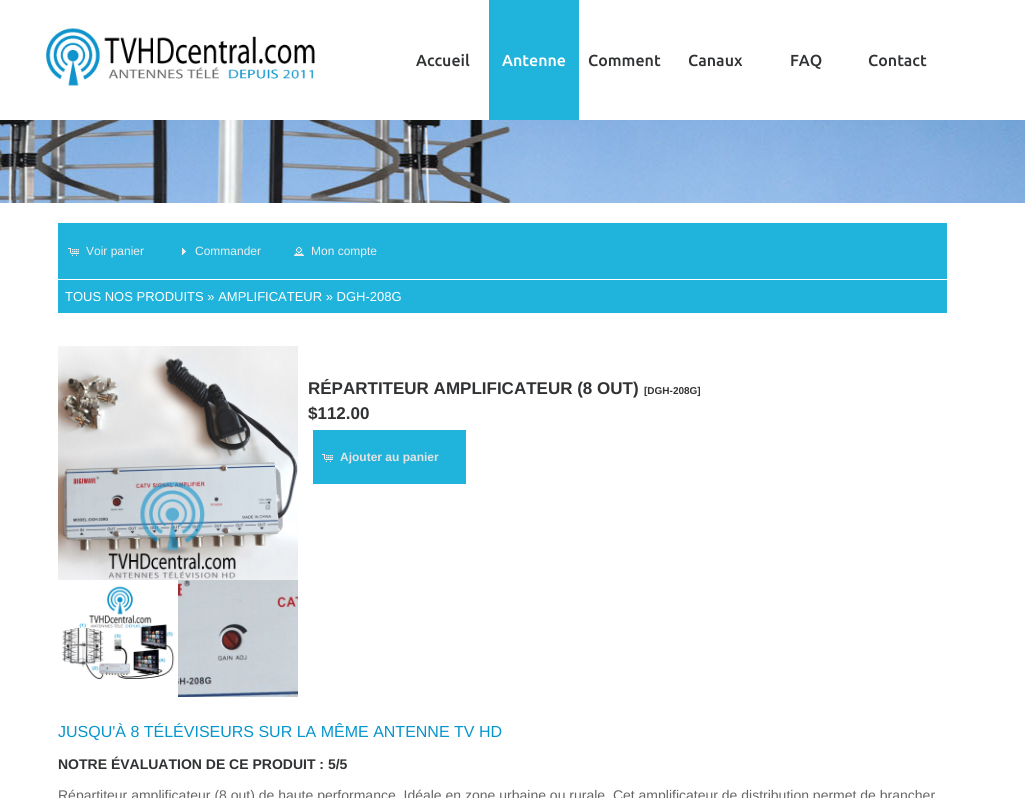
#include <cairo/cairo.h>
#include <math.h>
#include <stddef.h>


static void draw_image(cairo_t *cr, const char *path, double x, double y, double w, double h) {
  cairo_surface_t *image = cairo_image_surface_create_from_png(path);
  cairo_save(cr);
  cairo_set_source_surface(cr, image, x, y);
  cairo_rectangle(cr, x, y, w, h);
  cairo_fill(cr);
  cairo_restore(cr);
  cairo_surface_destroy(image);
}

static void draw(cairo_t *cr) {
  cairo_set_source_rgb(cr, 1, 1, 1);
  cairo_paint(cr);
  draw_image(cr, "images/1.png", 0, 120, 1025, 83);
  draw_image(cr, "images/2.png", 46, 28, 269, 58);
  cairo_set_source_rgb(cr, 32 / 255.0, 180 / 255.0, 220 / 255.0);
  cairo_rectangle(cr, 489, 0, 90, 120);
  cairo_fill(cr);
  cairo_rectangle(cr, 58, 223, 889, 56);
  cairo_fill(cr);
  draw_image(cr, "images/3.png", 68, 248, 11, 8);
  draw_image(cr, "images/4.png", 182, 248, 4, 7);
  draw_image(cr, "images/5.png", 294, 246, 10, 10);
  cairo_rectangle(cr, 58, 280, 889, 33);
  cairo_fill(cr);
  draw_image(cr, "images/6.png", 58, 346, 240, 234);
  draw_image(cr, "images/7.png", 61, 586, 114, 93);
  draw_image(cr, "images/8.png", 178, 580, 120, 117);
  cairo_rectangle(cr, 313, 430, 153, 54);
  cairo_fill(cr);
  draw_image(cr, "images/3.png", 322, 454, 11, 8);
  cairo_select_font_face(cr, "Ubuntu Medium", CAIRO_FONT_SLANT_NORMAL, CAIRO_FONT_WEIGHT_NORMAL);
  cairo_set_font_size(cr, 16);
  cairo_set_source_rgb(cr, 48 / 255.0, 50 / 255.0, 52 / 255.0);
  cairo_move_to(cr, 416, 66);
  cairo_show_text(cr, "Accueil");
  cairo_set_source_rgb(cr, 1, 1, 1);
  cairo_move_to(cr, 502, 66);
  cairo_show_text(cr, "Antenne");
  cairo_set_source_rgb(cr, 48 / 255.0, 50 / 255.0, 52 / 255.0);
  cairo_move_to(cr, 588, 66);
  cairo_show_text(cr, "Comment");
  cairo_move_to(cr, 688, 66);
  cairo_show_text(cr, "Canaux");
  cairo_move_to(cr, 790, 66);
  cairo_show_text(cr, "FAQ");
  cairo_move_to(cr, 868, 66);
  cairo_show_text(cr, "Contact");
  cairo_select_font_face(cr, "Liberation Sans", CAIRO_FONT_SLANT_NORMAL, CAIRO_FONT_WEIGHT_NORMAL);
  cairo_set_font_size(cr, 12);
  cairo_set_source_rgb(cr, 238 / 255.0, 238 / 255.0, 238 / 255.0);
  cairo_move_to(cr, 86, 255);
  cairo_show_text(cr, "Voir panier");
  cairo_move_to(cr, 195, 255);
  cairo_show_text(cr, "Commander");
  cairo_move_to(cr, 311, 255);
  cairo_show_text(cr, "Mon compte");
  cairo_set_font_size(cr, 13);
  cairo_set_source_rgb(cr, 1, 1, 1);
  cairo_move_to(cr, 65, 301);
  cairo_show_text(cr, "TOUS NOS PRODUITS » AMPLIFICATEUR » DGH-208G");
  cairo_select_font_face(cr, "Liberation Sans", CAIRO_FONT_SLANT_NORMAL, CAIRO_FONT_WEIGHT_BOLD);
  cairo_set_font_size(cr, 17);
  cairo_set_source_rgb(cr, 48 / 255.0, 50 / 255.0, 52 / 255.0);
  cairo_move_to(cr, 308, 394);
  cairo_show_text(cr, "RÉPARTITEUR AMPLIFICATEUR (8 OUT)");
  cairo_set_font_size(cr, 10);
  cairo_move_to(cr, 644, 394);
  cairo_show_text(cr, "[DGH-208G]");
  cairo_set_font_size(cr, 17);
  cairo_move_to(cr, 308, 419);
  cairo_show_text(cr, "$112.00");
  cairo_set_font_size(cr, 12);
  cairo_set_source_rgb(cr, 227 / 255.0, 227 / 255.0, 227 / 255.0);
  cairo_move_to(cr, 340, 461);
  cairo_show_text(cr, "Ajouter au panier");
  cairo_select_font_face(cr, "Liberation Sans", CAIRO_FONT_SLANT_NORMAL, CAIRO_FONT_WEIGHT_NORMAL);
  cairo_set_font_size(cr, 16);
  cairo_set_source_rgb(cr, 6 / 255.0, 149 / 255.0, 205 / 255.0);
  cairo_move_to(cr, 58, 737);
  cairo_show_text(cr, "JUSQU'À 8 TÉLÉVISEURS SUR LA MÊME ANTENNE TV HD");
  cairo_select_font_face(cr, "Liberation Sans", CAIRO_FONT_SLANT_NORMAL, CAIRO_FONT_WEIGHT_BOLD);
  cairo_set_font_size(cr, 14);
  cairo_set_source_rgb(cr, 48 / 255.0, 50 / 255.0, 52 / 255.0);
  cairo_move_to(cr, 58, 769);
  cairo_show_text(cr, "NOTRE ÉVALUATION DE CE PRODUIT : 5/5");
  cairo_select_font_face(cr, "Liberation Sans", CAIRO_FONT_SLANT_NORMAL, CAIRO_FONT_WEIGHT_NORMAL);
  cairo_set_source_rgb(cr, 102 / 255.0, 102 / 255.0, 102 / 255.0);
  cairo_move_to(cr, 58, 800);
  cairo_show_text(cr, "Répartiteur amplificateur (8 out) de haute performance. Idéale en zone urbaine ou rurale. Cet amplificateur de distribution permet de brancher");
}

int main(void) {
  cairo_surface_t *surface = cairo_image_surface_create(CAIRO_FORMAT_RGB24, 1025, 798);
  cairo_t *cr = cairo_create(surface);
  cairo_font_options_t *options = cairo_font_options_create();
  cairo_font_options_set_hint_metrics(options, CAIRO_HINT_METRICS_OFF);
  cairo_font_options_set_hint_style(options, CAIRO_HINT_STYLE_NONE);
  cairo_set_font_options(cr, options);
  cairo_set_miter_limit(cr, 4);
  draw(cr);
  cairo_surface_write_to_png(surface, "out.png");
  cairo_font_options_destroy(options);
  cairo_destroy(cr);
  cairo_surface_destroy(surface);
  return 0;
}
